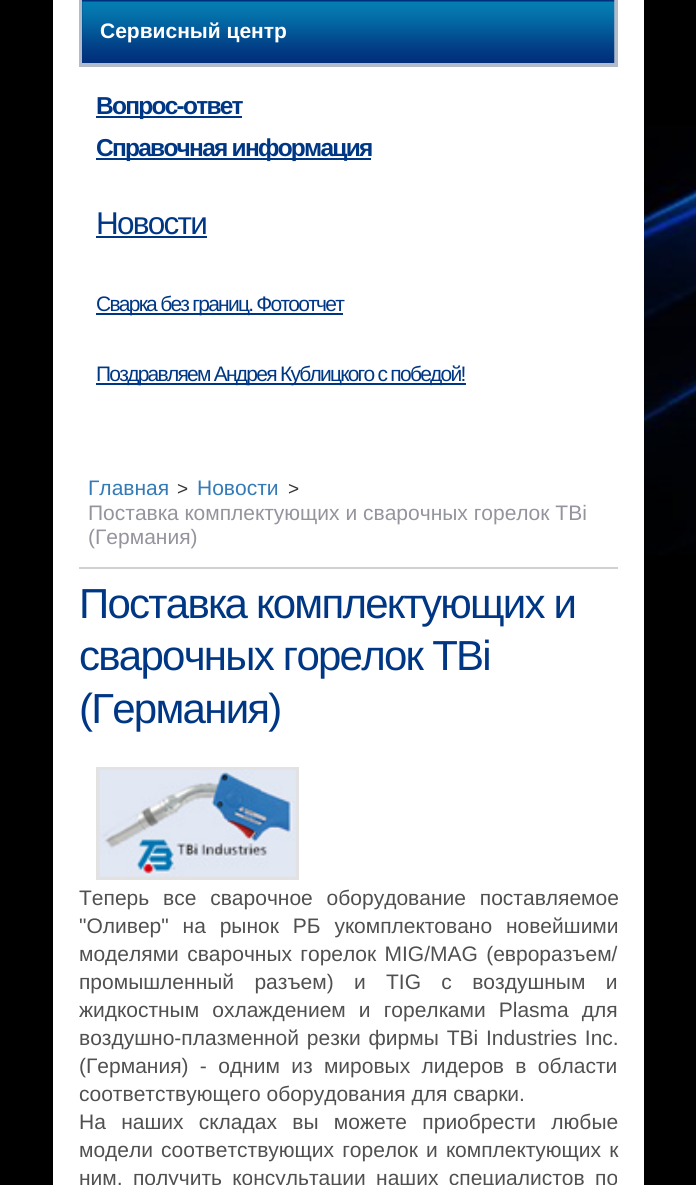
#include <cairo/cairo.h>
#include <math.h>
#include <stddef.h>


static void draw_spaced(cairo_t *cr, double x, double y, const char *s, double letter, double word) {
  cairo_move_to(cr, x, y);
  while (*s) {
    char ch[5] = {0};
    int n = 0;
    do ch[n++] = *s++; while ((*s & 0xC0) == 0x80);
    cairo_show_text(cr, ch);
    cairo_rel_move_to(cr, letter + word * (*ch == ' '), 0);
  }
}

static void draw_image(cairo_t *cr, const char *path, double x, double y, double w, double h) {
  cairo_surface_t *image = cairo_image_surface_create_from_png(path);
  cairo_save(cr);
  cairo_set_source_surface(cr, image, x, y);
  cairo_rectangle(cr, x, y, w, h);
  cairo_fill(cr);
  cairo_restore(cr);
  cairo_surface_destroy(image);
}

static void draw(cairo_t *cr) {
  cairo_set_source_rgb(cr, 0, 0, 0);
  cairo_paint(cr);
  draw_image(cr, "images/1.png", 644, 125, 52, 430);
  cairo_set_source_rgb(cr, 1, 1, 1);
  cairo_rectangle(cr, 53, 0, 591, 1185);
  cairo_fill(cr);
  cairo_rectangle(cr, 81, -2, 535, 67);
  cairo_set_source_rgb(cr, 177 / 255.0, 187 / 255.0, 201 / 255.0);
  cairo_set_line_width(cr, 4);
  cairo_stroke(cr);
  cairo_set_source_rgb(cr, 1 / 255.0, 47 / 255.0, 124 / 255.0);
  cairo_rectangle(cr, 82, 0, 532, 63);
  cairo_fill(cr);
  draw_image(cr, "images/2.png", 614, 0, 1, 2);
  draw_image(cr, "images/3.png", 82, 1, 533, 62);
  cairo_set_source_rgb(cr, 0, 55 / 255.0, 133 / 255.0);
  cairo_rectangle(cr, 96, 116, 146, 2);
  cairo_fill(cr);
  cairo_rectangle(cr, 96, 158, 275, 2);
  cairo_fill(cr);
  cairo_rectangle(cr, 96, 236, 111, 2);
  cairo_fill(cr);
  cairo_rectangle(cr, 96, 313, 247, 2);
  cairo_fill(cr);
  cairo_rectangle(cr, 96, 383, 370, 2);
  cairo_fill(cr);
  cairo_set_source_rgb(cr, 209 / 255.0, 209 / 255.0, 209 / 255.0);
  cairo_rectangle(cr, 79, 567, 539, 2);
  cairo_fill(cr);
  cairo_rectangle(cr, 98, 769, 199, 109);
  cairo_set_source_rgb(cr, 226 / 255.0, 226 / 255.0, 226 / 255.0);
  cairo_stroke(cr);
  draw_image(cr, "images/4.png", 99, 769, 197, 108);
  cairo_select_font_face(cr, "Liberation Sans", CAIRO_FONT_SLANT_NORMAL, CAIRO_FONT_WEIGHT_BOLD);
  cairo_set_font_size(cr, 21);
  cairo_set_source_rgb(cr, 1, 1, 1);
  cairo_move_to(cr, 100, 38);
  cairo_show_text(cr, "Сервисный центр");
  cairo_set_font_size(cr, 24.5);
  cairo_set_source_rgb(cr, 0, 55 / 255.0, 133 / 255.0);
  draw_spaced(cr, 96, 114, "Вопрос-ответ", -1.75, 0);
  draw_spaced(cr, 96, 156, "Справочная информация", -1.75, 0);
  cairo_select_font_face(cr, "Liberation Sans", CAIRO_FONT_SLANT_NORMAL, CAIRO_FONT_WEIGHT_NORMAL);
  cairo_set_font_size(cr, 31.5);
  draw_spaced(cr, 96, 234, "Новости", -1.75, 0);
  cairo_set_font_size(cr, 21);
  draw_spaced(cr, 96, 311, "Сварка без границ. Фотоотчет", -1.75, 0);
  draw_spaced(cr, 96, 381, "Поздравляем Андрея Кублицкого с победой!", -1.75, 0);
  cairo_set_source_rgb(cr, 51 / 255.0, 122 / 255.0, 183 / 255.0);
  cairo_move_to(cr, 88, 495);
  cairo_show_text(cr, "Главная");
  cairo_set_font_size(cr, 19);
  cairo_set_source_rgb(cr, 53 / 255.0, 53 / 255.0, 53 / 255.0);
  cairo_move_to(cr, 177, 495);
  cairo_show_text(cr, ">");
  cairo_set_font_size(cr, 21);
  cairo_set_source_rgb(cr, 51 / 255.0, 122 / 255.0, 183 / 255.0);
  cairo_move_to(cr, 197, 495);
  cairo_show_text(cr, "Новости");
  cairo_set_font_size(cr, 19);
  cairo_set_source_rgb(cr, 53 / 255.0, 53 / 255.0, 53 / 255.0);
  cairo_move_to(cr, 288, 495);
  cairo_show_text(cr, ">");
  cairo_set_font_size(cr, 21);
  cairo_set_source_rgb(cr, 148 / 255.0, 148 / 255.0, 157 / 255.0);
  cairo_move_to(cr, 88, 520);
  cairo_show_text(cr, "Поставка комплектующих и сварочных горелок TBi");
  cairo_move_to(cr, 88, 544);
  cairo_show_text(cr, "(Германия)");
  cairo_set_font_size(cr, 42);
  cairo_set_source_rgb(cr, 0, 55 / 255.0, 133 / 255.0);
  draw_spaced(cr, 79, 618, "Поставка комплектующих и", -1.75, 0);
  draw_spaced(cr, 79, 670, "сварочных горелок TBi", -1.75, 0);
  draw_spaced(cr, 79, 723, "(Германия)", -1.75, 0);
  cairo_set_font_size(cr, 21);
  cairo_set_source_rgb(cr, 80 / 255.0, 80 / 255.0, 80 / 255.0);
  draw_spaced(cr, 79, 905, "Теперь все сварочное оборудование поставляемое", 0, 8);
  draw_spaced(cr, 79, 933, "\"Оливер\" на рынок РБ укомплектовано новейшими", 0, 8);
  draw_spaced(cr, 79, 961, "моделями сварочных горелок MIG/MAG (евроразъем/", 0, 2.5);
  draw_spaced(cr, 79, 989, "промышленный разъем) и TIG с воздушным и", 0, 14.5);
  draw_spaced(cr, 79, 1017, "жидкостным охлаждением и горелками Plasma для", 0, 7.25);
  draw_spaced(cr, 79, 1045, "воздушно-плазменной резки фирмы TBi Industries Inc.", 0, 2);
  draw_spaced(cr, 79, 1073, "(Германия) - одним из мировых лидеров в области", 0, 5.5);
  cairo_move_to(cr, 79, 1101);
  cairo_show_text(cr, "соответствующего оборудования для сварки.");
  draw_spaced(cr, 79, 1129, "На наших складах вы можете приобрести любые", 0, 9.5);
  draw_spaced(cr, 79, 1157, "модели соответствующих горелок и комплектующих к", 0, 2.25);
  draw_spaced(cr, 79, 1185, "ним, получить консультации наших специалистов по", 0, 4.5);
}

int main(void) {
  cairo_surface_t *surface = cairo_image_surface_create(CAIRO_FORMAT_RGB24, 696, 1185);
  cairo_t *cr = cairo_create(surface);
  cairo_font_options_t *options = cairo_font_options_create();
  cairo_font_options_set_hint_metrics(options, CAIRO_HINT_METRICS_OFF);
  cairo_font_options_set_hint_style(options, CAIRO_HINT_STYLE_NONE);
  cairo_set_font_options(cr, options);
  cairo_set_miter_limit(cr, 4);
  draw(cr);
  cairo_surface_write_to_png(surface, "out.png");
  cairo_font_options_destroy(options);
  cairo_destroy(cr);
  cairo_surface_destroy(surface);
  return 0;
}
